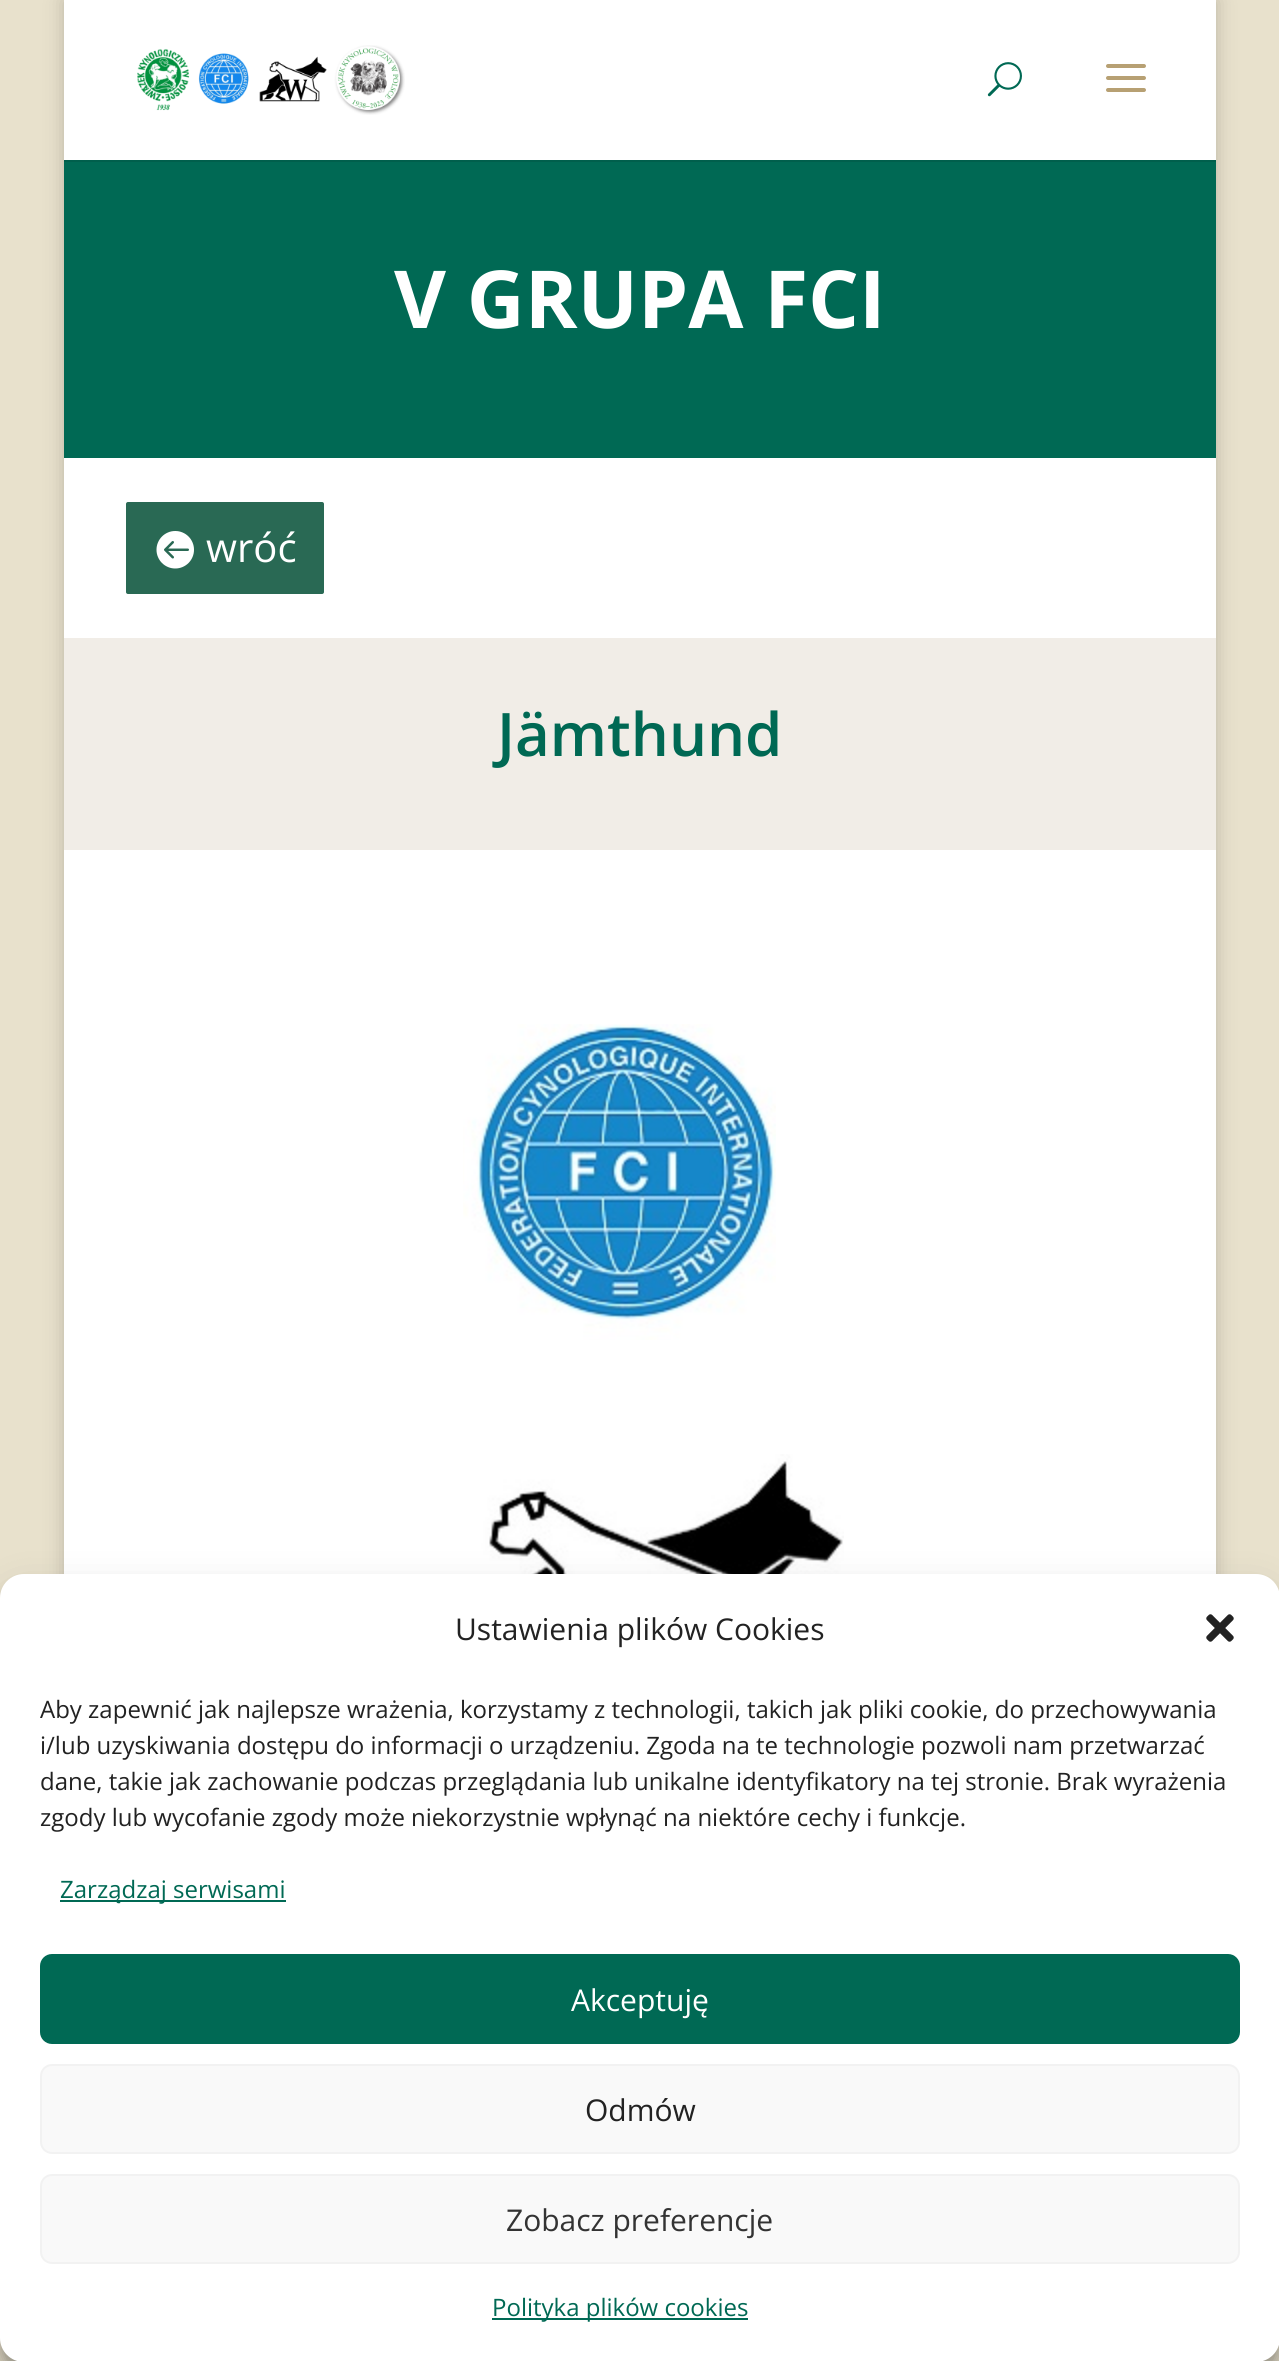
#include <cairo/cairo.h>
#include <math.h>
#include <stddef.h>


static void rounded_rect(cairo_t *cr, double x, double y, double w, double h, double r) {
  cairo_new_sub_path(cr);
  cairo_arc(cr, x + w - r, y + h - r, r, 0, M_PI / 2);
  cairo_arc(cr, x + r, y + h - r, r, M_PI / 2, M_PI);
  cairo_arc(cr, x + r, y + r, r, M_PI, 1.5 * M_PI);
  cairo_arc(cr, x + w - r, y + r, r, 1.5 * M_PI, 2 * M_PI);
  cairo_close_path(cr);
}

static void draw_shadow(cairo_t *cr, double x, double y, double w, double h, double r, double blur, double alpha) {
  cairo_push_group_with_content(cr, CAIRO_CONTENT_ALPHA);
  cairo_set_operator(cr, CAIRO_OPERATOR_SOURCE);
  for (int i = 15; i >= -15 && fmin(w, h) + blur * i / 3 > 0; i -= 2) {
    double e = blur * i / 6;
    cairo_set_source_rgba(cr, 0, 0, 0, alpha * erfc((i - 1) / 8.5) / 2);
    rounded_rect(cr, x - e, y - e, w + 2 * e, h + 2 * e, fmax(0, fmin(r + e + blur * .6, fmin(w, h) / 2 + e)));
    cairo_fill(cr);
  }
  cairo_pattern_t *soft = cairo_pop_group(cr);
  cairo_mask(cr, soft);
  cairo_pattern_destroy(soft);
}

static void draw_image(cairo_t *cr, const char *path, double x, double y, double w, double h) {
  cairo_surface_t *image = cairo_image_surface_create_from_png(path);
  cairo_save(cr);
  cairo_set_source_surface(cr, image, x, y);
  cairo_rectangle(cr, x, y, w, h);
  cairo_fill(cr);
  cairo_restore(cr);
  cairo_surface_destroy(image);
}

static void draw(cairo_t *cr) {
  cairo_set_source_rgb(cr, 232 / 255.0, 225 / 255.0, 204 / 255.0);
  cairo_paint(cr);
  cairo_set_source_rgb(cr, 0, 0, 0);
  draw_shadow(cr, 64, 0, 1152, 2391, 0, 10, 0.2);
  cairo_set_source_rgb(cr, 0, 95 / 255.0, 76 / 255.0);
  cairo_rectangle(cr, 64, 160, 1152, 2);
  cairo_fill(cr);
  cairo_set_source_rgb(cr, 1, 1, 1);
  cairo_rectangle(cr, 64, 0, 1152, 160);
  cairo_fill(cr);
  draw_image(cr, "images/1.png", 137, 45, 268, 70);
  draw_image(cr, "images/2.png", 987, 62, 35, 35);
  draw_image(cr, "images/3.png", 1106, 64, 40, 28);
  cairo_set_source_rgb(cr, 0, 105 / 255.0, 84 / 255.0);
  cairo_rectangle(cr, 64, 162, 1152, 296);
  cairo_fill(cr);
  cairo_set_source_rgb(cr, 1, 1, 1);
  cairo_rectangle(cr, 64, 458, 1152, 180);
  cairo_fill(cr);
  cairo_set_source_rgb(cr, 41 / 255.0, 105 / 255.0, 84 / 255.0);
  rounded_rect(cr, 124, 500, 202, 96, 4);
  cairo_fill_preserve(cr);
  cairo_set_source_rgb(cr, 1, 1, 1);
  cairo_set_line_width(cr, 4);
  cairo_stroke(cr);
  draw_image(cr, "images/4.png", 156, 531, 38, 38);
  cairo_set_source_rgb(cr, 241 / 255.0, 237 / 255.0, 231 / 255.0);
  cairo_rectangle(cr, 64, 638, 1152, 212);
  cairo_fill(cr);
  cairo_set_source_rgb(cr, 1, 1, 1);
  cairo_rectangle(cr, 64, 850, 1152, 724);
  cairo_fill(cr);
  draw_image(cr, "images/5.png", 463, 1024, 313, 316);
  draw_image(cr, "images/6.png", 426, 1454, 418, 120);
  cairo_set_source_rgb(cr, 0, 0, 0);
  draw_shadow(cr, 0, 1586, 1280, 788, 24, 6, 0.23);
  draw_shadow(cr, 0, 1594, 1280, 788, 24, 20, 0.19);
  cairo_set_source_rgb(cr, 1, 1, 1);
  rounded_rect(cr, 0, 1574, 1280, 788, 24);
  cairo_fill(cr);
  draw_image(cr, "images/7.png", 1206, 1614, 28, 28);
  cairo_set_source_rgb(cr, 0, 105 / 255.0, 84 / 255.0);
  cairo_rectangle(cr, 60, 1900, 226, 2);
  cairo_fill(cr);
  rounded_rect(cr, 41, 1955, 1198, 88, 11);
  cairo_fill_preserve(cr);
  cairo_set_line_width(cr, 2);
  cairo_stroke(cr);
  cairo_set_source_rgb(cr, 249 / 255.0, 249 / 255.0, 249 / 255.0);
  rounded_rect(cr, 41, 2065, 1198, 88, 11);
  cairo_fill_preserve(cr);
  cairo_set_source_rgb(cr, 242 / 255.0, 242 / 255.0, 242 / 255.0);
  cairo_stroke(cr);
  cairo_set_source_rgb(cr, 249 / 255.0, 249 / 255.0, 249 / 255.0);
  rounded_rect(cr, 41, 2175, 1198, 88, 11);
  cairo_fill_preserve(cr);
  cairo_set_source_rgb(cr, 242 / 255.0, 242 / 255.0, 242 / 255.0);
  cairo_stroke(cr);
  cairo_set_source_rgb(cr, 0, 105 / 255.0, 84 / 255.0);
  cairo_rectangle(cr, 492, 2318, 256, 2);
  cairo_fill(cr);
  cairo_select_font_face(cr, "Open Sans", CAIRO_FONT_SLANT_NORMAL, CAIRO_FONT_WEIGHT_BOLD);
  cairo_set_font_size(cr, 80);
  cairo_set_source_rgb(cr, 1, 1, 1);
  cairo_move_to(cr, 394, 328);
  cairo_show_text(cr, "V GRUPA FCI");
  cairo_select_font_face(cr, "Open Sans", CAIRO_FONT_SLANT_NORMAL, CAIRO_FONT_WEIGHT_NORMAL);
  cairo_set_font_size(cr, 40);
  cairo_move_to(cr, 206, 562);
  cairo_show_text(cr, "wróć");
  cairo_select_font_face(cr, "Open Sans SemiBold", CAIRO_FONT_SLANT_NORMAL, CAIRO_FONT_WEIGHT_NORMAL);
  cairo_set_font_size(cr, 60);
  cairo_set_source_rgb(cr, 0, 105 / 255.0, 84 / 255.0);
  cairo_move_to(cr, 497, 756);
  cairo_show_text(cr, "Jämthund");
  cairo_select_font_face(cr, "Open Sans", CAIRO_FONT_SLANT_NORMAL, CAIRO_FONT_WEIGHT_NORMAL);
  cairo_set_font_size(cr, 30);
  cairo_set_source_rgb(cr, 34 / 255.0, 34 / 255.0, 34 / 255.0);
  cairo_move_to(cr, 455, 1640);
  cairo_show_text(cr, "Ustawienia plików Cookies");
  cairo_set_font_size(cr, 24);
  cairo_move_to(cr, 40, 1718);
  cairo_show_text(cr, "Aby zapewnić jak najlepsze wrażenia, korzystamy z technologii, takich jak pliki cookie, do przechowywania");
  cairo_move_to(cr, 40, 1754);
  cairo_show_text(cr, "i/lub uzyskiwania dostępu do informacji o urządzeniu. Zgoda na te technologie pozwoli nam przetwarzać");
  cairo_move_to(cr, 40, 1790);
  cairo_show_text(cr, "dane, takie jak zachowanie podczas przeglądania lub unikalne identyfikatory na tej stronie. Brak wyrażenia");
  cairo_move_to(cr, 40, 1826);
  cairo_show_text(cr, "zgody lub wycofanie zgody może niekorzystnie wpłynąć na niektóre cechy i funkcje.");
  cairo_set_source_rgb(cr, 0, 105 / 255.0, 84 / 255.0);
  cairo_move_to(cr, 60, 1898);
  cairo_show_text(cr, "Zarządzaj serwisami");
  cairo_set_font_size(cr, 30);
  cairo_set_source_rgb(cr, 1, 1, 1);
  cairo_move_to(cr, 571, 2011);
  cairo_show_text(cr, "Akceptuję");
  cairo_set_source_rgb(cr, 34 / 255.0, 34 / 255.0, 34 / 255.0);
  cairo_move_to(cr, 585, 2121);
  cairo_show_text(cr, "Odmów");
  cairo_set_source_rgb(cr, 51 / 255.0, 51 / 255.0, 51 / 255.0);
  cairo_move_to(cr, 506, 2231);
  cairo_show_text(cr, "Zobacz preferencje");
  cairo_set_font_size(cr, 24);
  cairo_set_source_rgb(cr, 0, 105 / 255.0, 84 / 255.0);
  cairo_move_to(cr, 492, 2316);
  cairo_show_text(cr, "Polityka plików cookies");
}

int main(void) {
  cairo_surface_t *surface = cairo_image_surface_create(CAIRO_FORMAT_RGB24, 1279, 2361);
  cairo_t *cr = cairo_create(surface);
  cairo_font_options_t *options = cairo_font_options_create();
  cairo_font_options_set_hint_metrics(options, CAIRO_HINT_METRICS_OFF);
  cairo_font_options_set_hint_style(options, CAIRO_HINT_STYLE_NONE);
  cairo_set_font_options(cr, options);
  cairo_set_miter_limit(cr, 4);
  draw(cr);
  cairo_surface_write_to_png(surface, "out.png");
  cairo_font_options_destroy(options);
  cairo_destroy(cr);
  cairo_surface_destroy(surface);
  return 0;
}
